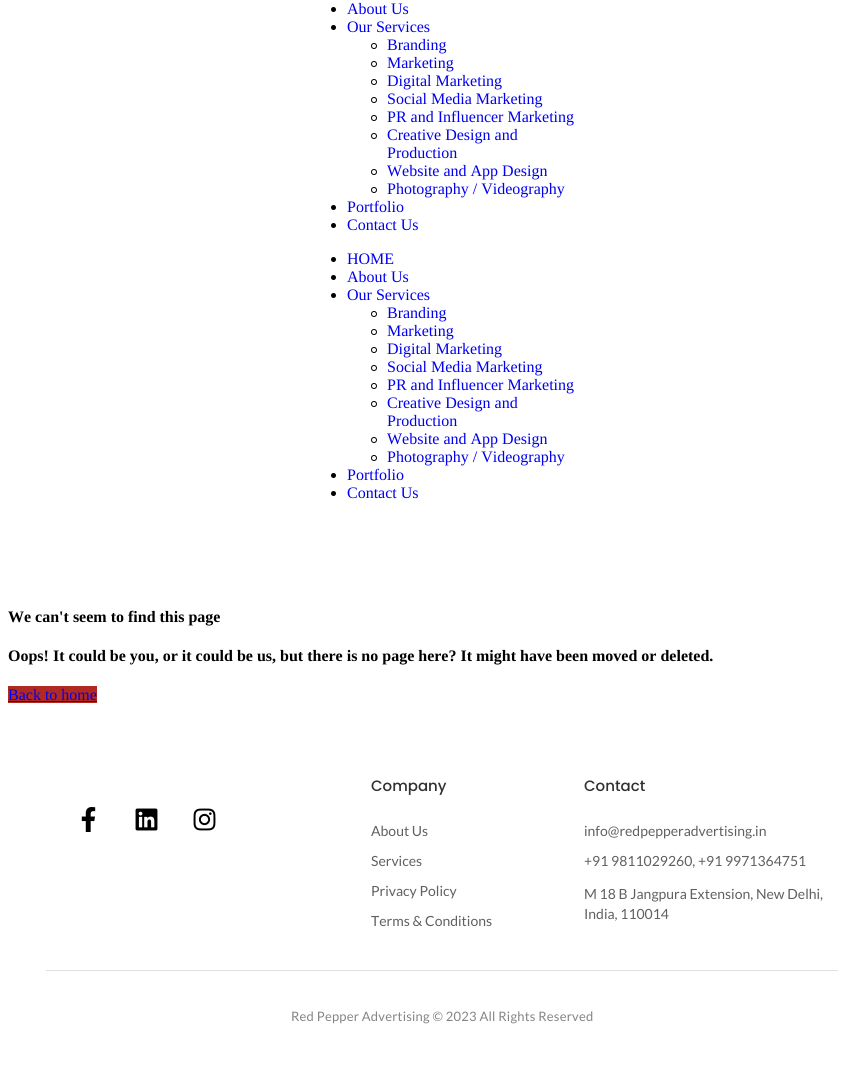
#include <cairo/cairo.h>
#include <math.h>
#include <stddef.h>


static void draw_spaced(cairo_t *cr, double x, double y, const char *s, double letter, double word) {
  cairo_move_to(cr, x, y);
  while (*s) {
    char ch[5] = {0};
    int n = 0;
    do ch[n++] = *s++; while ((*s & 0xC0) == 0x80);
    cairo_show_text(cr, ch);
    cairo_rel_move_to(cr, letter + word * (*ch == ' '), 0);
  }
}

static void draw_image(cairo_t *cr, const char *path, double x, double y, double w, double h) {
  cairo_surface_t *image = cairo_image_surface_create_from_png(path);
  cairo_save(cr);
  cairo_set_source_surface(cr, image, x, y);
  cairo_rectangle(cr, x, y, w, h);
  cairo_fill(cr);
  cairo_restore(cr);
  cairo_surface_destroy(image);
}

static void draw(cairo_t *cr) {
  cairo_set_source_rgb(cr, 1, 1, 1);
  cairo_paint(cr);
  cairo_set_source_rgb(cr, 0, 0, 0);
  cairo_arc(cr, 333.5, 9.5, 2.5, 0, 2 * M_PI);
  cairo_fill(cr);
  cairo_arc(cr, 333.5, 27.5, 2.5, 0, 2 * M_PI);
  cairo_fill(cr);
  cairo_arc(cr, 374, 46, 2.5, 0, 2 * M_PI);
  cairo_set_line_width(cr, 1);
  cairo_stroke(cr);
  cairo_arc(cr, 374, 64, 2.5, 0, 2 * M_PI);
  cairo_stroke(cr);
  cairo_arc(cr, 374, 82, 2.5, 0, 2 * M_PI);
  cairo_stroke(cr);
  cairo_arc(cr, 374, 100, 2.5, 0, 2 * M_PI);
  cairo_stroke(cr);
  cairo_arc(cr, 374, 118, 2.5, 0, 2 * M_PI);
  cairo_stroke(cr);
  cairo_arc(cr, 374, 136, 2.5, 0, 2 * M_PI);
  cairo_stroke(cr);
  cairo_arc(cr, 374, 172, 2.5, 0, 2 * M_PI);
  cairo_stroke(cr);
  cairo_arc(cr, 374, 190, 2.5, 0, 2 * M_PI);
  cairo_stroke(cr);
  cairo_arc(cr, 333.5, 207.5, 2.5, 0, 2 * M_PI);
  cairo_fill(cr);
  cairo_arc(cr, 333.5, 225.5, 2.5, 0, 2 * M_PI);
  cairo_fill(cr);
  cairo_arc(cr, 333.5, 259.5, 2.5, 0, 2 * M_PI);
  cairo_fill(cr);
  cairo_arc(cr, 333.5, 277.5, 2.5, 0, 2 * M_PI);
  cairo_fill(cr);
  cairo_arc(cr, 333.5, 295.5, 2.5, 0, 2 * M_PI);
  cairo_fill(cr);
  cairo_arc(cr, 374, 314, 2.5, 0, 2 * M_PI);
  cairo_stroke(cr);
  cairo_arc(cr, 374, 332, 2.5, 0, 2 * M_PI);
  cairo_stroke(cr);
  cairo_arc(cr, 374, 350, 2.5, 0, 2 * M_PI);
  cairo_stroke(cr);
  cairo_arc(cr, 374, 368, 2.5, 0, 2 * M_PI);
  cairo_stroke(cr);
  cairo_arc(cr, 374, 386, 2.5, 0, 2 * M_PI);
  cairo_stroke(cr);
  cairo_arc(cr, 374, 404, 2.5, 0, 2 * M_PI);
  cairo_stroke(cr);
  cairo_arc(cr, 374, 440, 2.5, 0, 2 * M_PI);
  cairo_stroke(cr);
  cairo_arc(cr, 374, 458, 2.5, 0, 2 * M_PI);
  cairo_stroke(cr);
  cairo_arc(cr, 333.5, 475.5, 2.5, 0, 2 * M_PI);
  cairo_fill(cr);
  cairo_arc(cr, 333.5, 493.5, 2.5, 0, 2 * M_PI);
  cairo_fill(cr);
  cairo_set_source_rgb(cr, 177 / 255.0, 41 / 255.0, 35 / 255.0);
  cairo_rectangle(cr, 8, 686, 89, 17);
  cairo_fill(cr);
  cairo_set_source_rgb(cr, 0, 0, 238 / 255.0);
  cairo_rectangle(cr, 8, 701, 89, 1);
  cairo_fill(cr);
  draw_image(cr, "images/1.png", 81, 807, 15, 25);
  draw_image(cr, "images/2.png", 135, 808, 23, 23);
  draw_image(cr, "images/3.png", 193, 808, 23, 23);
  cairo_set_source_rgb(cr, 224 / 255.0, 224 / 255.0, 224 / 255.0);
  cairo_rectangle(cr, 46, 970, 792, 1);
  cairo_fill(cr);
  cairo_select_font_face(cr, "Liberation Serif", CAIRO_FONT_SLANT_NORMAL, CAIRO_FONT_WEIGHT_NORMAL);
  cairo_set_font_size(cr, 16);
  cairo_set_source_rgb(cr, 0, 0, 238 / 255.0);
  cairo_move_to(cr, 347, 14);
  cairo_show_text(cr, "About Us");
  cairo_move_to(cr, 347, 32);
  cairo_show_text(cr, "Our Services");
  cairo_move_to(cr, 387, 50);
  cairo_show_text(cr, "Branding");
  cairo_move_to(cr, 387, 68);
  cairo_show_text(cr, "Marketing");
  cairo_move_to(cr, 387, 86);
  cairo_show_text(cr, "Digital Marketing");
  cairo_move_to(cr, 387, 104);
  cairo_show_text(cr, "Social Media Marketing");
  cairo_move_to(cr, 387, 122);
  cairo_show_text(cr, "PR and Influencer Marketing");
  cairo_move_to(cr, 387, 140);
  cairo_show_text(cr, "Creative Design and");
  cairo_move_to(cr, 387, 158);
  cairo_show_text(cr, "Production");
  cairo_move_to(cr, 387, 176);
  cairo_show_text(cr, "Website and App Design");
  cairo_move_to(cr, 387, 194);
  cairo_show_text(cr, "Photography / Videography");
  cairo_move_to(cr, 347, 212);
  cairo_show_text(cr, "Portfolio");
  cairo_move_to(cr, 347, 230);
  cairo_show_text(cr, "Contact Us");
  cairo_move_to(cr, 347, 264);
  cairo_show_text(cr, "HOME");
  cairo_move_to(cr, 347, 282);
  cairo_show_text(cr, "About Us");
  cairo_move_to(cr, 347, 300);
  cairo_show_text(cr, "Our Services");
  cairo_move_to(cr, 387, 318);
  cairo_show_text(cr, "Branding");
  cairo_move_to(cr, 387, 336);
  cairo_show_text(cr, "Marketing");
  cairo_move_to(cr, 387, 354);
  cairo_show_text(cr, "Digital Marketing");
  cairo_move_to(cr, 387, 372);
  cairo_show_text(cr, "Social Media Marketing");
  cairo_move_to(cr, 387, 390);
  cairo_show_text(cr, "PR and Influencer Marketing");
  cairo_move_to(cr, 387, 408);
  cairo_show_text(cr, "Creative Design and");
  cairo_move_to(cr, 387, 426);
  cairo_show_text(cr, "Production");
  cairo_move_to(cr, 387, 444);
  cairo_show_text(cr, "Website and App Design");
  cairo_move_to(cr, 387, 462);
  cairo_show_text(cr, "Photography / Videography");
  cairo_move_to(cr, 347, 480);
  cairo_show_text(cr, "Portfolio");
  cairo_move_to(cr, 347, 498);
  cairo_show_text(cr, "Contact Us");
  cairo_select_font_face(cr, "Liberation Serif", CAIRO_FONT_SLANT_NORMAL, CAIRO_FONT_WEIGHT_BOLD);
  cairo_set_source_rgb(cr, 0, 0, 0);
  cairo_move_to(cr, 8, 622);
  cairo_show_text(cr, "We can't seem to find this page");
  cairo_move_to(cr, 8, 661);
  cairo_show_text(cr, "Oops! It could be you, or it could be us, but there is no page here? It might have been moved or deleted.");
  cairo_select_font_face(cr, "Liberation Serif", CAIRO_FONT_SLANT_NORMAL, CAIRO_FONT_WEIGHT_NORMAL);
  cairo_set_source_rgb(cr, 0, 0, 238 / 255.0);
  cairo_move_to(cr, 8, 700);
  cairo_show_text(cr, "Back to home");
  cairo_select_font_face(cr, "Poppins Medium", CAIRO_FONT_SLANT_NORMAL, CAIRO_FONT_WEIGHT_NORMAL);
  cairo_set_font_size(cr, 15);
  cairo_set_source_rgb(cr, 48 / 255.0, 48 / 255.0, 48 / 255.0);
  cairo_move_to(cr, 371, 791);
  cairo_show_text(cr, "Company");
  cairo_select_font_face(cr, "Lato", CAIRO_FONT_SLANT_NORMAL, CAIRO_FONT_WEIGHT_NORMAL);
  cairo_set_font_size(cr, 14);
  cairo_set_source_rgb(cr, 96 / 255.0, 96 / 255.0, 96 / 255.0);
  cairo_move_to(cr, 371, 836);
  cairo_show_text(cr, "About Us");
  cairo_move_to(cr, 371, 866);
  cairo_show_text(cr, "Services");
  cairo_move_to(cr, 371, 896);
  cairo_show_text(cr, "Privacy Policy");
  cairo_move_to(cr, 371, 926);
  cairo_show_text(cr, "Terms & Conditions");
  cairo_select_font_face(cr, "Poppins Medium", CAIRO_FONT_SLANT_NORMAL, CAIRO_FONT_WEIGHT_NORMAL);
  cairo_set_font_size(cr, 15);
  cairo_set_source_rgb(cr, 48 / 255.0, 48 / 255.0, 48 / 255.0);
  cairo_move_to(cr, 584, 791);
  cairo_show_text(cr, "Contact");
  cairo_select_font_face(cr, "Lato", CAIRO_FONT_SLANT_NORMAL, CAIRO_FONT_WEIGHT_NORMAL);
  cairo_set_font_size(cr, 14);
  cairo_set_source_rgb(cr, 96 / 255.0, 96 / 255.0, 96 / 255.0);
  cairo_move_to(cr, 584, 836);
  cairo_show_text(cr, "info@redpepperadvertising.in");
  cairo_move_to(cr, 584, 866);
  cairo_show_text(cr, "+91 9811029260, +91 9971364751");
  cairo_move_to(cr, 584, 899);
  cairo_show_text(cr, "M 18 B Jangpura Extension, New Delhi,");
  cairo_move_to(cr, 584, 919);
  cairo_show_text(cr, "India, 110014");
  cairo_set_font_size(cr, 13);
  cairo_set_source_rgb(cr, 132 / 255.0, 132 / 255.0, 132 / 255.0);
  draw_spaced(cr, 291, 1021, "Red Pepper Advertising © 2023 All Rights Reserved", 0.2, 0);
}

int main(void) {
  cairo_surface_t *surface = cairo_image_surface_create(CAIRO_FORMAT_RGB24, 868, 1080);
  cairo_t *cr = cairo_create(surface);
  cairo_font_options_t *options = cairo_font_options_create();
  cairo_font_options_set_hint_metrics(options, CAIRO_HINT_METRICS_OFF);
  cairo_font_options_set_hint_style(options, CAIRO_HINT_STYLE_NONE);
  cairo_set_font_options(cr, options);
  cairo_set_miter_limit(cr, 4);
  draw(cr);
  cairo_surface_write_to_png(surface, "out.png");
  cairo_font_options_destroy(options);
  cairo_destroy(cr);
  cairo_surface_destroy(surface);
  return 0;
}
